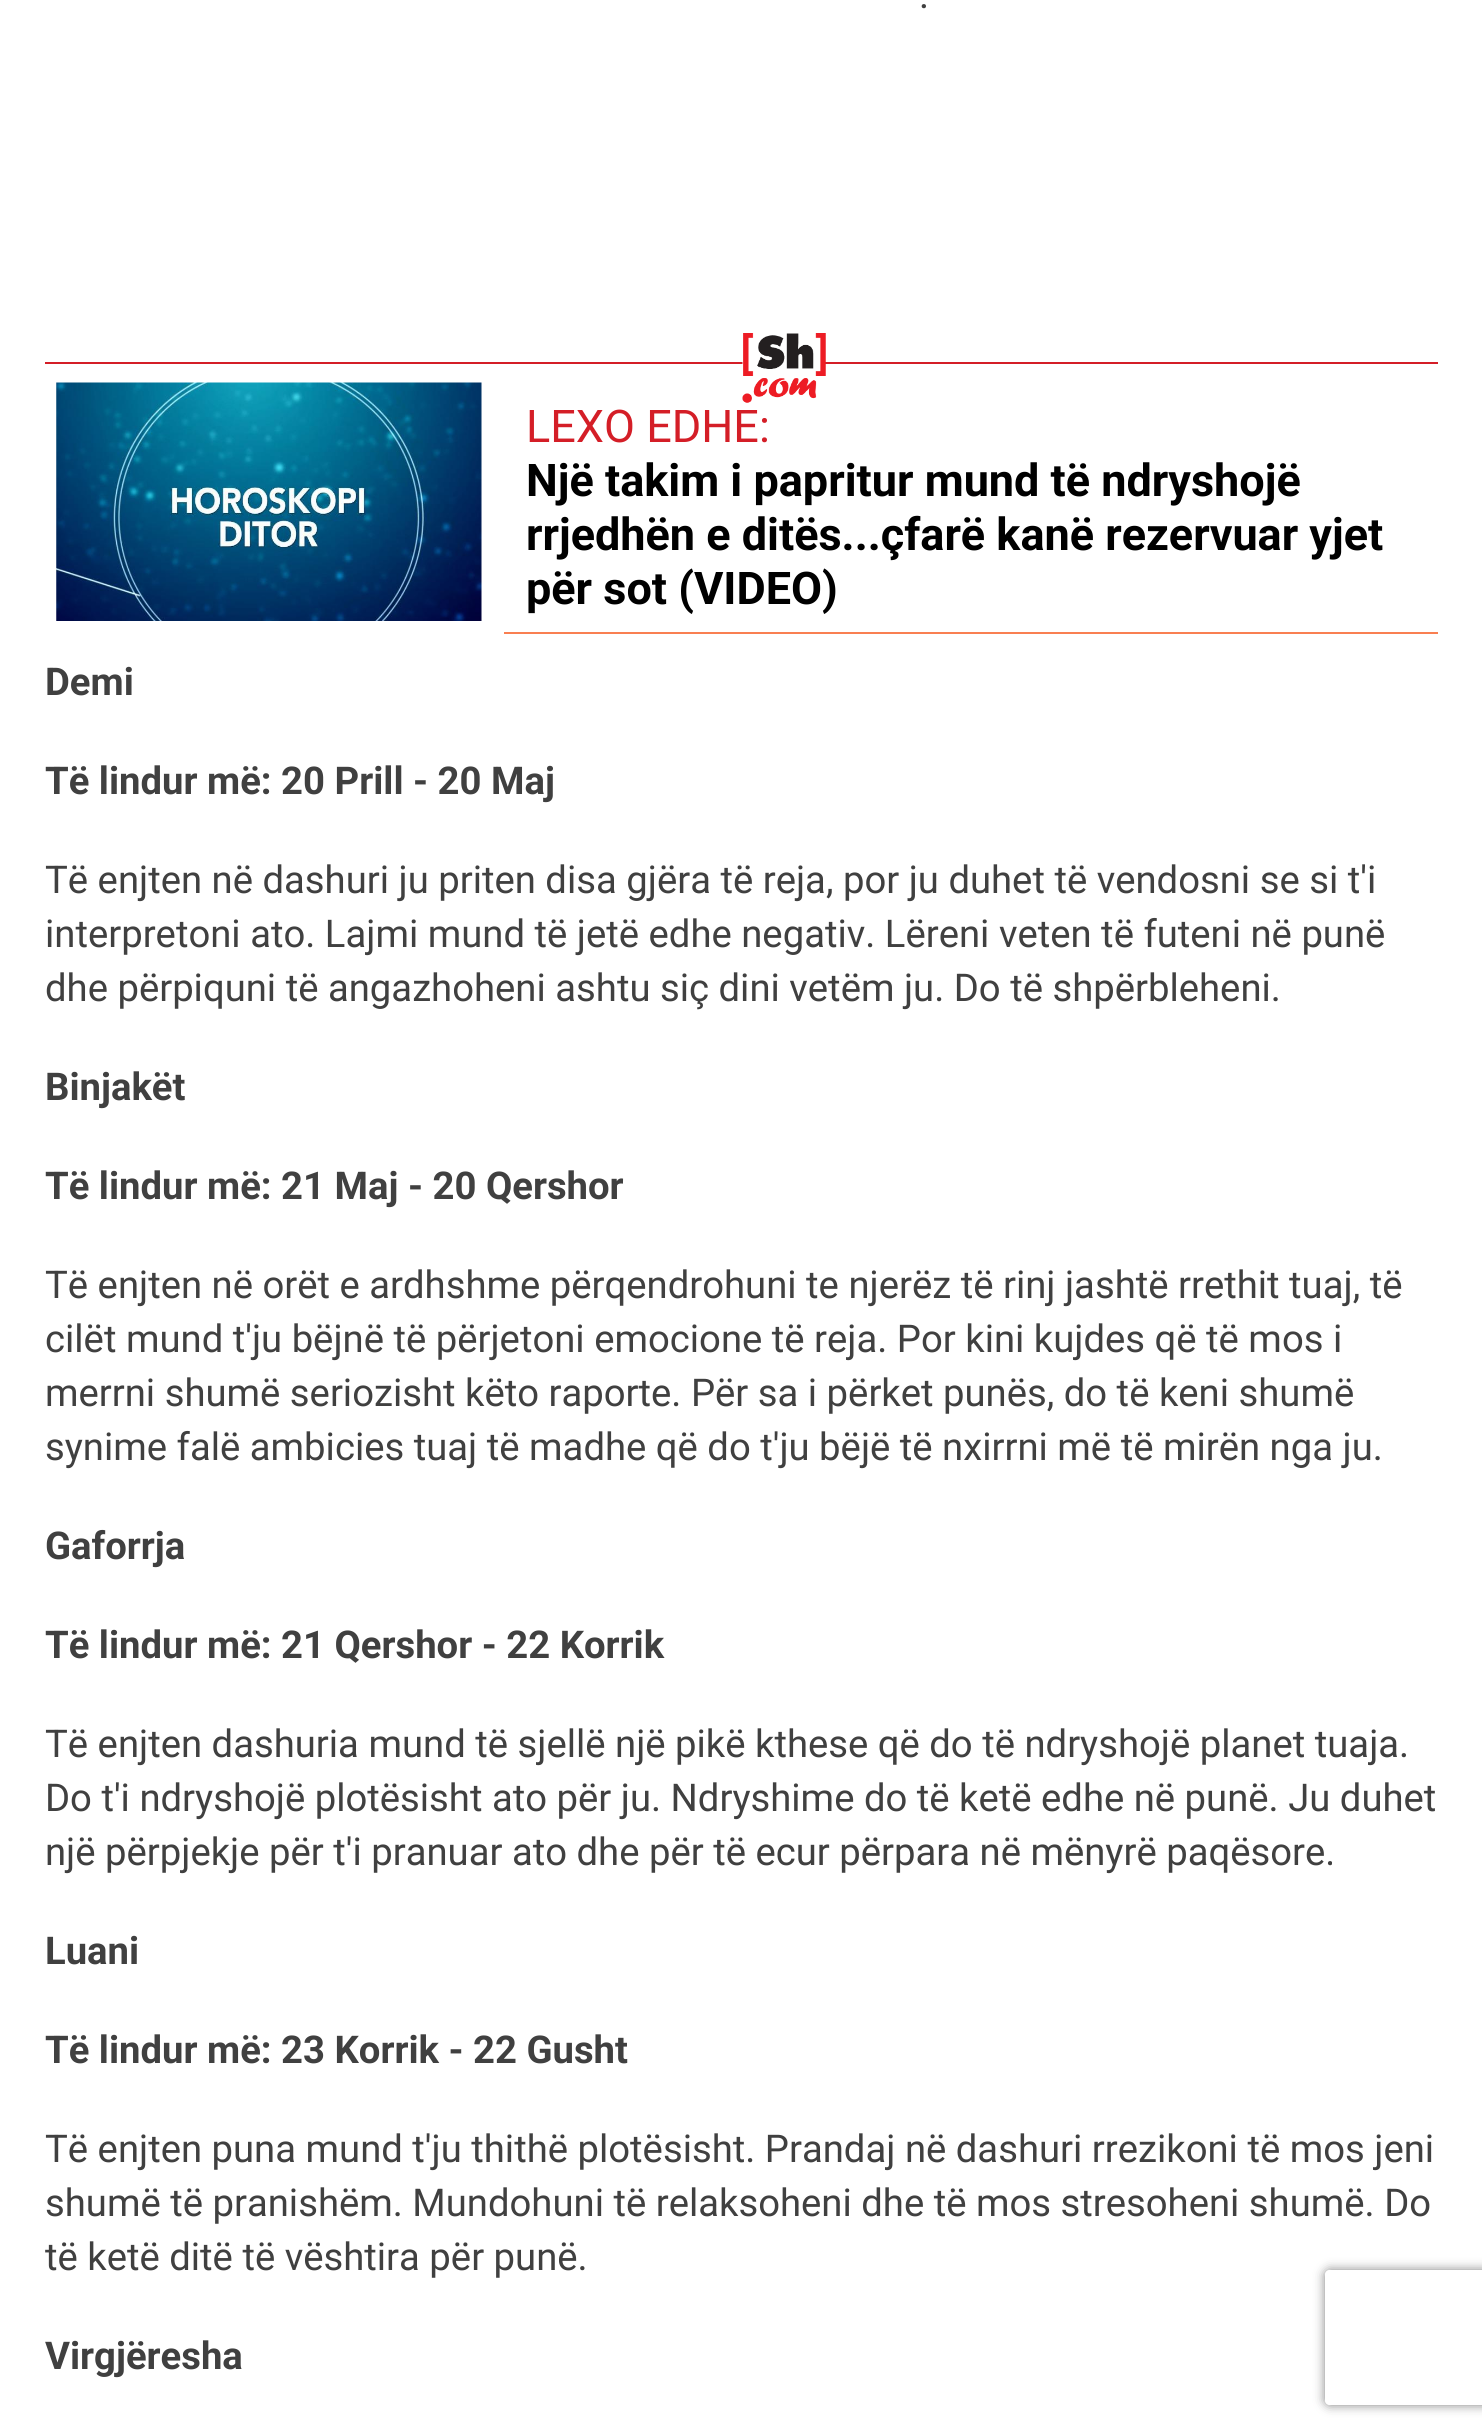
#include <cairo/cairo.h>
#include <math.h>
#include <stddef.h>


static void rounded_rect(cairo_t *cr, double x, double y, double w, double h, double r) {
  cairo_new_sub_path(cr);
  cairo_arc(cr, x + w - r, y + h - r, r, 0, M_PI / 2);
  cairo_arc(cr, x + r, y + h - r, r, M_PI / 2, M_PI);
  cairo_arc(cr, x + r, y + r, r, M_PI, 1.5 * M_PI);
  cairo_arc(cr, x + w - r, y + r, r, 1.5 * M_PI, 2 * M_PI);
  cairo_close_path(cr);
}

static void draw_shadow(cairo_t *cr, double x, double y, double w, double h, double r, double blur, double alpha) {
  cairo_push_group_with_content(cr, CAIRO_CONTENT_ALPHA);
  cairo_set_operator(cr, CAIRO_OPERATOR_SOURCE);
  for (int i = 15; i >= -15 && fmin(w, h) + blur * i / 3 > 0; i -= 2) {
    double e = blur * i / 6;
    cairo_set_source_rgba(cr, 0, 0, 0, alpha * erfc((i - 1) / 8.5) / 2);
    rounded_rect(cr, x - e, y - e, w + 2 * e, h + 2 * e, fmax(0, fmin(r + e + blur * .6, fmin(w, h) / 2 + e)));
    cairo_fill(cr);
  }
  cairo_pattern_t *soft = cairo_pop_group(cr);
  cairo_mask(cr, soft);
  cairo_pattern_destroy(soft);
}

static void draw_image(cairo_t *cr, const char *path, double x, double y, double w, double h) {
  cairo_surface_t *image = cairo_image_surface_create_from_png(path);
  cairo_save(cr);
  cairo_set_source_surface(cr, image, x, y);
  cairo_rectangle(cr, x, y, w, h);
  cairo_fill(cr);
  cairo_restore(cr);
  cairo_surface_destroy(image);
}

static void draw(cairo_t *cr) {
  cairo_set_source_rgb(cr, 1, 1, 1);
  cairo_paint(cr);
  cairo_set_source_rgb(cr, 212 / 255.0, 30 / 255.0, 39 / 255.0);
  cairo_rectangle(cr, 45, 362, 1393, 2);
  cairo_fill(cr);
  draw_image(cr, "images/1.png", 742, 333, 84, 70);
  draw_image(cr, "images/2.png", 56, 382, 426, 239);
  cairo_set_source_rgb(cr, 249 / 255.0, 127 / 255.0, 81 / 255.0);
  cairo_rectangle(cr, 504, 632, 934, 2);
  cairo_fill(cr);
  cairo_save(cr);
  cairo_set_fill_rule(cr, CAIRO_FILL_RULE_EVEN_ODD);
  cairo_new_path(cr);
  cairo_move_to(cr, 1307, 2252);
  cairo_line_to(cr, 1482, 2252);
  cairo_line_to(cr, 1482, 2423);
  cairo_line_to(cr, 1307, 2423);
  cairo_close_path(cr);
  cairo_move_to(cr, 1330, 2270);
  cairo_line_to(cr, 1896, 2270);
  cairo_curve_to(cr, 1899, 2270, 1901, 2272, 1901, 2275);
  cairo_line_to(cr, 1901, 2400);
  cairo_curve_to(cr, 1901, 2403, 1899, 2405, 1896, 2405);
  cairo_line_to(cr, 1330, 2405);
  cairo_curve_to(cr, 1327, 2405, 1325, 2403, 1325, 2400);
  cairo_line_to(cr, 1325, 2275);
  cairo_curve_to(cr, 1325, 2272, 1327, 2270, 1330, 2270);
  cairo_close_path(cr);
  cairo_clip(cr);
  cairo_set_source_rgb(cr, 128 / 255.0, 128 / 255.0, 128 / 255.0);
  draw_shadow(cr, 1325, 2270, 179, 135, 5, 5.5, 1);
  cairo_restore(cr);
  cairo_select_font_face(cr, "Roboto", CAIRO_FONT_SLANT_NORMAL, CAIRO_FONT_WEIGHT_NORMAL);
  cairo_set_font_size(cr, 38.25);
  cairo_set_source_rgb(cr, 64 / 255.0, 64 / 255.0, 64 / 255.0);
  cairo_move_to(cr, 919, 8);
  cairo_show_text(cr, ".");
  cairo_set_font_size(cr, 45);
  cairo_set_source_rgb(cr, 212 / 255.0, 30 / 255.0, 39 / 255.0);
  cairo_move_to(cr, 526, 442);
  cairo_show_text(cr, "LEXO EDHE:");
  cairo_select_font_face(cr, "Roboto", CAIRO_FONT_SLANT_NORMAL, CAIRO_FONT_WEIGHT_BOLD);
  cairo_set_source_rgb(cr, 0, 0, 0);
  cairo_move_to(cr, 526, 496);
  cairo_show_text(cr, "Një takim i papritur mund të ndryshojë");
  cairo_move_to(cr, 526, 550);
  cairo_show_text(cr, "rrjedhën e ditës...çfarë kanë rezervuar yjet");
  cairo_move_to(cr, 526, 604);
  cairo_show_text(cr, "për sot (VIDEO)");
  cairo_set_font_size(cr, 38.25);
  cairo_set_source_rgb(cr, 64 / 255.0, 64 / 255.0, 64 / 255.0);
  cairo_move_to(cr, 45, 695);
  cairo_show_text(cr, "Demi");
  cairo_move_to(cr, 45, 794);
  cairo_show_text(cr, "Të lindur më: 20 Prill - 20 Maj");
  cairo_select_font_face(cr, "Roboto", CAIRO_FONT_SLANT_NORMAL, CAIRO_FONT_WEIGHT_NORMAL);
  cairo_move_to(cr, 45, 893);
  cairo_show_text(cr, "Të enjten në dashuri ju priten disa gjëra të reja, por ju duhet të vendosni se si t'i");
  cairo_move_to(cr, 45, 947);
  cairo_show_text(cr, "interpretoni ato. Lajmi mund të jetë edhe negativ. Lëreni veten të futeni në punë");
  cairo_move_to(cr, 45, 1001);
  cairo_show_text(cr, "dhe përpiquni të angazhoheni ashtu siç dini vetëm ju. Do të shpërbleheni.");
  cairo_select_font_face(cr, "Roboto", CAIRO_FONT_SLANT_NORMAL, CAIRO_FONT_WEIGHT_BOLD);
  cairo_move_to(cr, 45, 1100);
  cairo_show_text(cr, "Binjakët");
  cairo_move_to(cr, 45, 1199);
  cairo_show_text(cr, "Të lindur më: 21 Maj - 20 Qershor");
  cairo_select_font_face(cr, "Roboto", CAIRO_FONT_SLANT_NORMAL, CAIRO_FONT_WEIGHT_NORMAL);
  cairo_move_to(cr, 45, 1298);
  cairo_show_text(cr, "Të enjten në orët e ardhshme përqendrohuni te njerëz të rinj jashtë rrethit tuaj, të");
  cairo_move_to(cr, 45, 1352);
  cairo_show_text(cr, "cilët mund t'ju bëjnë të përjetoni emocione të reja. Por kini kujdes që të mos i");
  cairo_move_to(cr, 45, 1406);
  cairo_show_text(cr, "merrni shumë seriozisht këto raporte. Për sa i përket punës, do të keni shumë");
  cairo_move_to(cr, 45, 1460);
  cairo_show_text(cr, "synime falë ambicies tuaj të madhe që do t'ju bëjë të nxirrni më të mirën nga ju.");
  cairo_select_font_face(cr, "Roboto", CAIRO_FONT_SLANT_NORMAL, CAIRO_FONT_WEIGHT_BOLD);
  cairo_move_to(cr, 45, 1559);
  cairo_show_text(cr, "Gaforrja");
  cairo_move_to(cr, 45, 1658);
  cairo_show_text(cr, "Të lindur më: 21 Qershor - 22 Korrik");
  cairo_select_font_face(cr, "Roboto", CAIRO_FONT_SLANT_NORMAL, CAIRO_FONT_WEIGHT_NORMAL);
  cairo_move_to(cr, 45, 1757);
  cairo_show_text(cr, "Të enjten dashuria mund të sjellë një pikë kthese që do të ndryshojë planet tuaja.");
  cairo_move_to(cr, 45, 1811);
  cairo_show_text(cr, "Do t'i ndryshojë plotësisht ato për ju. Ndryshime do të ketë edhe në punë. Ju duhet");
  cairo_move_to(cr, 45, 1865);
  cairo_show_text(cr, "një përpjekje për t'i pranuar ato dhe për të ecur përpara në mënyrë paqësore.");
  cairo_select_font_face(cr, "Roboto", CAIRO_FONT_SLANT_NORMAL, CAIRO_FONT_WEIGHT_BOLD);
  cairo_move_to(cr, 45, 1964);
  cairo_show_text(cr, "Luani");
  cairo_move_to(cr, 45, 2063);
  cairo_show_text(cr, "Të lindur më: 23 Korrik - 22 Gusht");
  cairo_select_font_face(cr, "Roboto", CAIRO_FONT_SLANT_NORMAL, CAIRO_FONT_WEIGHT_NORMAL);
  cairo_move_to(cr, 45, 2162);
  cairo_show_text(cr, "Të enjten puna mund t'ju thithë plotësisht. Prandaj në dashuri rrezikoni të mos jeni");
  cairo_move_to(cr, 45, 2216);
  cairo_show_text(cr, "shumë të pranishëm. Mundohuni të relaksoheni dhe të mos stresoheni shumë. Do");
  cairo_move_to(cr, 45, 2270);
  cairo_show_text(cr, "të ketë ditë të vështira për punë.");
  cairo_select_font_face(cr, "Roboto", CAIRO_FONT_SLANT_NORMAL, CAIRO_FONT_WEIGHT_BOLD);
  cairo_move_to(cr, 45, 2369);
  cairo_show_text(cr, "Virgjëresha");
}

int main(void) {
  cairo_surface_t *surface = cairo_image_surface_create(CAIRO_FORMAT_RGB24, 1482, 2435);
  cairo_t *cr = cairo_create(surface);
  cairo_font_options_t *options = cairo_font_options_create();
  cairo_font_options_set_hint_metrics(options, CAIRO_HINT_METRICS_OFF);
  cairo_font_options_set_hint_style(options, CAIRO_HINT_STYLE_NONE);
  cairo_set_font_options(cr, options);
  cairo_set_miter_limit(cr, 4);
  draw(cr);
  cairo_surface_write_to_png(surface, "out.png");
  cairo_font_options_destroy(options);
  cairo_destroy(cr);
  cairo_surface_destroy(surface);
  return 0;
}
